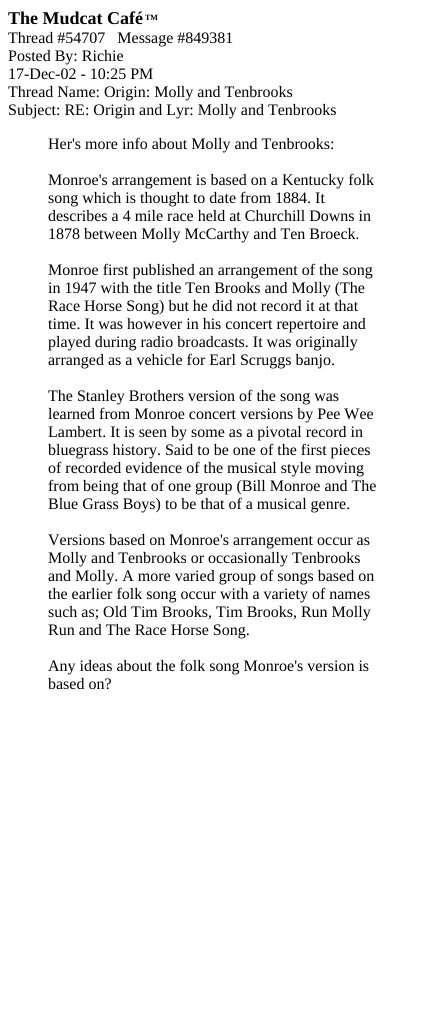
#include <cairo/cairo.h>
#include <math.h>
#include <stddef.h>


static void draw(cairo_t *cr) {
  cairo_set_source_rgb(cr, 1, 1, 1);
  cairo_paint(cr);
  cairo_select_font_face(cr, "Liberation Serif", CAIRO_FONT_SLANT_NORMAL, CAIRO_FONT_WEIGHT_BOLD);
  cairo_set_font_size(cr, 18);
  cairo_set_source_rgb(cr, 0, 0, 0);
  cairo_move_to(cr, 8, 24);
  cairo_show_text(cr, "The Mudcat Café");
  cairo_set_font_size(cr, 8);
  cairo_move_to(cr, 145, 20);
  cairo_show_text(cr, "TM");
  cairo_select_font_face(cr, "Liberation Serif", CAIRO_FONT_SLANT_NORMAL, CAIRO_FONT_WEIGHT_NORMAL);
  cairo_set_font_size(cr, 16);
  cairo_move_to(cr, 8, 43);
  cairo_show_text(cr, "Thread #54707   Message #849381");
  cairo_move_to(cr, 8, 61);
  cairo_show_text(cr, "Posted By: Richie");
  cairo_move_to(cr, 8, 79);
  cairo_show_text(cr, "17-Dec-02 - 10:25 PM");
  cairo_move_to(cr, 8, 97);
  cairo_show_text(cr, "Thread Name: Origin: Molly and Tenbrooks");
  cairo_move_to(cr, 8, 115);
  cairo_show_text(cr, "Subject: RE: Origin and Lyr: Molly and Tenbrooks");
  cairo_move_to(cr, 48, 149);
  cairo_show_text(cr, "Her's more info about Molly and Tenbrooks:");
  cairo_move_to(cr, 48, 185);
  cairo_show_text(cr, "Monroe's arrangement is based on a Kentucky folk");
  cairo_move_to(cr, 48, 203);
  cairo_show_text(cr, "song which is thought to date from 1884. It");
  cairo_move_to(cr, 48, 221);
  cairo_show_text(cr, "describes a 4 mile race held at Churchill Downs in");
  cairo_move_to(cr, 48, 239);
  cairo_show_text(cr, "1878 between Molly McCarthy and Ten Broeck.");
  cairo_move_to(cr, 48, 275);
  cairo_show_text(cr, "Monroe first published an arrangement of the song");
  cairo_move_to(cr, 48, 293);
  cairo_show_text(cr, "in 1947 with the title Ten Brooks and Molly (The");
  cairo_move_to(cr, 48, 311);
  cairo_show_text(cr, "Race Horse Song) but he did not record it at that");
  cairo_move_to(cr, 48, 329);
  cairo_show_text(cr, "time. It was however in his concert repertoire and");
  cairo_move_to(cr, 48, 347);
  cairo_show_text(cr, "played during radio broadcasts. It was originally");
  cairo_move_to(cr, 48, 365);
  cairo_show_text(cr, "arranged as a vehicle for Earl Scruggs banjo.");
  cairo_move_to(cr, 48, 401);
  cairo_show_text(cr, "The Stanley Brothers version of the song was");
  cairo_move_to(cr, 48, 419);
  cairo_show_text(cr, "learned from Monroe concert versions by Pee Wee");
  cairo_move_to(cr, 48, 437);
  cairo_show_text(cr, "Lambert. It is seen by some as a pivotal record in");
  cairo_move_to(cr, 48, 455);
  cairo_show_text(cr, "bluegrass history. Said to be one of the first pieces");
  cairo_move_to(cr, 48, 473);
  cairo_show_text(cr, "of recorded evidence of the musical style moving");
  cairo_move_to(cr, 48, 491);
  cairo_show_text(cr, "from being that of one group (Bill Monroe and The");
  cairo_move_to(cr, 48, 509);
  cairo_show_text(cr, "Blue Grass Boys) to be that of a musical genre.");
  cairo_move_to(cr, 48, 545);
  cairo_show_text(cr, "Versions based on Monroe's arrangement occur as");
  cairo_move_to(cr, 48, 563);
  cairo_show_text(cr, "Molly and Tenbrooks or occasionally Tenbrooks");
  cairo_move_to(cr, 48, 581);
  cairo_show_text(cr, "and Molly. A more varied group of songs based on");
  cairo_move_to(cr, 48, 599);
  cairo_show_text(cr, "the earlier folk song occur with a variety of names");
  cairo_move_to(cr, 48, 617);
  cairo_show_text(cr, "such as; Old Tim Brooks, Tim Brooks, Run Molly");
  cairo_move_to(cr, 48, 635);
  cairo_show_text(cr, "Run and The Race Horse Song.");
  cairo_move_to(cr, 48, 671);
  cairo_show_text(cr, "Any ideas about the folk song Monroe's version is");
  cairo_move_to(cr, 48, 689);
  cairo_show_text(cr, "based on?");
}

int main(void) {
  cairo_surface_t *surface = cairo_image_surface_create(CAIRO_FORMAT_RGB24, 431, 1029);
  cairo_t *cr = cairo_create(surface);
  cairo_font_options_t *options = cairo_font_options_create();
  cairo_font_options_set_hint_metrics(options, CAIRO_HINT_METRICS_OFF);
  cairo_font_options_set_hint_style(options, CAIRO_HINT_STYLE_NONE);
  cairo_set_font_options(cr, options);
  cairo_set_miter_limit(cr, 4);
  draw(cr);
  cairo_surface_write_to_png(surface, "out.png");
  cairo_font_options_destroy(options);
  cairo_destroy(cr);
  cairo_surface_destroy(surface);
  return 0;
}
